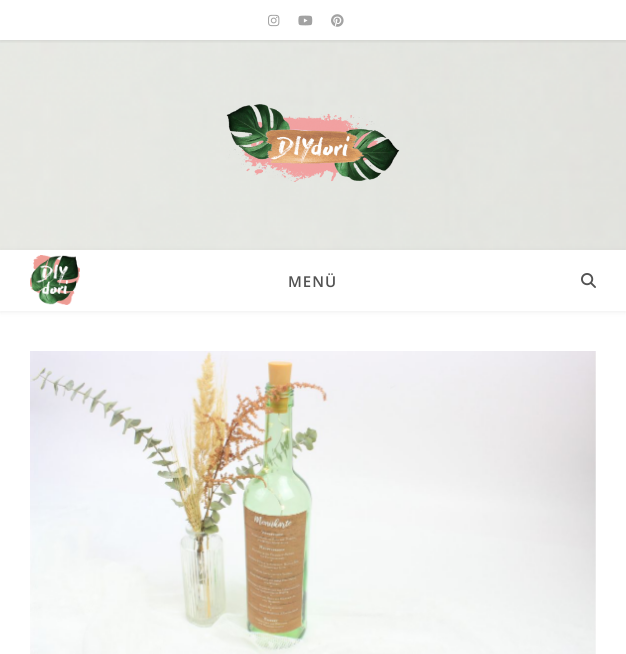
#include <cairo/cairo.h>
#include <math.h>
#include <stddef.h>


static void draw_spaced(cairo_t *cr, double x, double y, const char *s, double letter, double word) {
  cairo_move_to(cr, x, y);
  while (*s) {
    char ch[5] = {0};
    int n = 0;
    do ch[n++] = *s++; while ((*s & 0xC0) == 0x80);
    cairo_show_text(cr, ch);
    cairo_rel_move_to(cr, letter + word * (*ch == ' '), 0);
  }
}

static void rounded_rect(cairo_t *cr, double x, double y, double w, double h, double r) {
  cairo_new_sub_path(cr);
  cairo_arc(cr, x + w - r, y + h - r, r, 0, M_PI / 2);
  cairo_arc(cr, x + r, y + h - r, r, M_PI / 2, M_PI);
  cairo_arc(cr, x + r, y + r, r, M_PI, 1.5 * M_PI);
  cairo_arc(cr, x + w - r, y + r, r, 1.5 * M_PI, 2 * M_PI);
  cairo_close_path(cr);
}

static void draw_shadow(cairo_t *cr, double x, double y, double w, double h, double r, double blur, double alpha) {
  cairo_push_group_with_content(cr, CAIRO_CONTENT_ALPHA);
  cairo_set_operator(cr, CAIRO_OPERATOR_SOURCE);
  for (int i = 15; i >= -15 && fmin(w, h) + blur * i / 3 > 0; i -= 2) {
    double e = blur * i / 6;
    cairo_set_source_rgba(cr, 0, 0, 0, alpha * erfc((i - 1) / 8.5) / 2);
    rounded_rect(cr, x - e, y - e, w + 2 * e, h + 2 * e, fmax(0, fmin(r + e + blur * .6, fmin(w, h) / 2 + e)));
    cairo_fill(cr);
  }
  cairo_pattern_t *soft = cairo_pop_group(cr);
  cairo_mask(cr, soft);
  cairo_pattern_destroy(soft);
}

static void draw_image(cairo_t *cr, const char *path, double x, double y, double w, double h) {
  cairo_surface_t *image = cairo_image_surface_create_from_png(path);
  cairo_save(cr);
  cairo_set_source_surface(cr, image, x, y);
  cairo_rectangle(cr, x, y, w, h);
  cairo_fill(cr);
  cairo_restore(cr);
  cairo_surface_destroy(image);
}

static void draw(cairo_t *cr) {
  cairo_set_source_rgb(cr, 1, 1, 1);
  cairo_paint(cr);
  draw_image(cr, "images/1.png", 0, 40, 626, 210);
  cairo_save(cr);
  cairo_rectangle(cr, 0, 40, 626, 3);
  cairo_clip(cr);
  cairo_set_source_rgb(cr, 2 / 255.0, 2 / 255.0, 2 / 255.0);
  draw_shadow(cr, 0, 1, 626, 40, 0, 2.5, 0.1);
  cairo_restore(cr);
  draw_image(cr, "images/2.png", 268, 14, 12, 13);
  draw_image(cr, "images/3.png", 298, 15, 15, 11);
  draw_image(cr, "images/4.png", 331, 14, 13, 13);
  draw_image(cr, "images/5.png", 226, 104, 174, 78);
  cairo_save(cr);
  cairo_set_fill_rule(cr, CAIRO_FILL_RULE_EVEN_ODD);
  cairo_new_path(cr);
  cairo_move_to(cr, 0, 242);
  cairo_line_to(cr, 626, 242);
  cairo_line_to(cr, 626, 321);
  cairo_line_to(cr, 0, 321);
  cairo_close_path(cr);
  cairo_move_to(cr, 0, 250);
  cairo_line_to(cr, 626, 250);
  cairo_line_to(cr, 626, 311);
  cairo_line_to(cr, 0, 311);
  cairo_close_path(cr);
  cairo_clip(cr);
  cairo_set_source_rgb(cr, 81 / 255.0, 81 / 255.0, 81 / 255.0);
  draw_shadow(cr, 0, 251, 626, 61, 0, 2.5, 0.1);
  cairo_restore(cr);
  draw_image(cr, "images/6.png", 30, 255, 50, 50);
  draw_image(cr, "images/7.png", 581, 273, 15, 15);
  draw_image(cr, "images/8.png", 30, 351, 566, 303);
  cairo_select_font_face(cr, "Open Sans SemiBold", CAIRO_FONT_SLANT_NORMAL, CAIRO_FONT_WEIGHT_NORMAL);
  cairo_set_font_size(cr, 15);
  cairo_set_source_rgb(cr, 81 / 255.0, 81 / 255.0, 81 / 255.0);
  draw_spaced(cr, 288, 287, "MENÜ", 1, 0);
}

int main(void) {
  cairo_surface_t *surface = cairo_image_surface_create(CAIRO_FORMAT_RGB24, 626, 654);
  cairo_t *cr = cairo_create(surface);
  cairo_font_options_t *options = cairo_font_options_create();
  cairo_font_options_set_hint_metrics(options, CAIRO_HINT_METRICS_OFF);
  cairo_font_options_set_hint_style(options, CAIRO_HINT_STYLE_NONE);
  cairo_set_font_options(cr, options);
  cairo_set_miter_limit(cr, 4);
  draw(cr);
  cairo_surface_write_to_png(surface, "out.png");
  cairo_font_options_destroy(options);
  cairo_destroy(cr);
  cairo_surface_destroy(surface);
  return 0;
}
